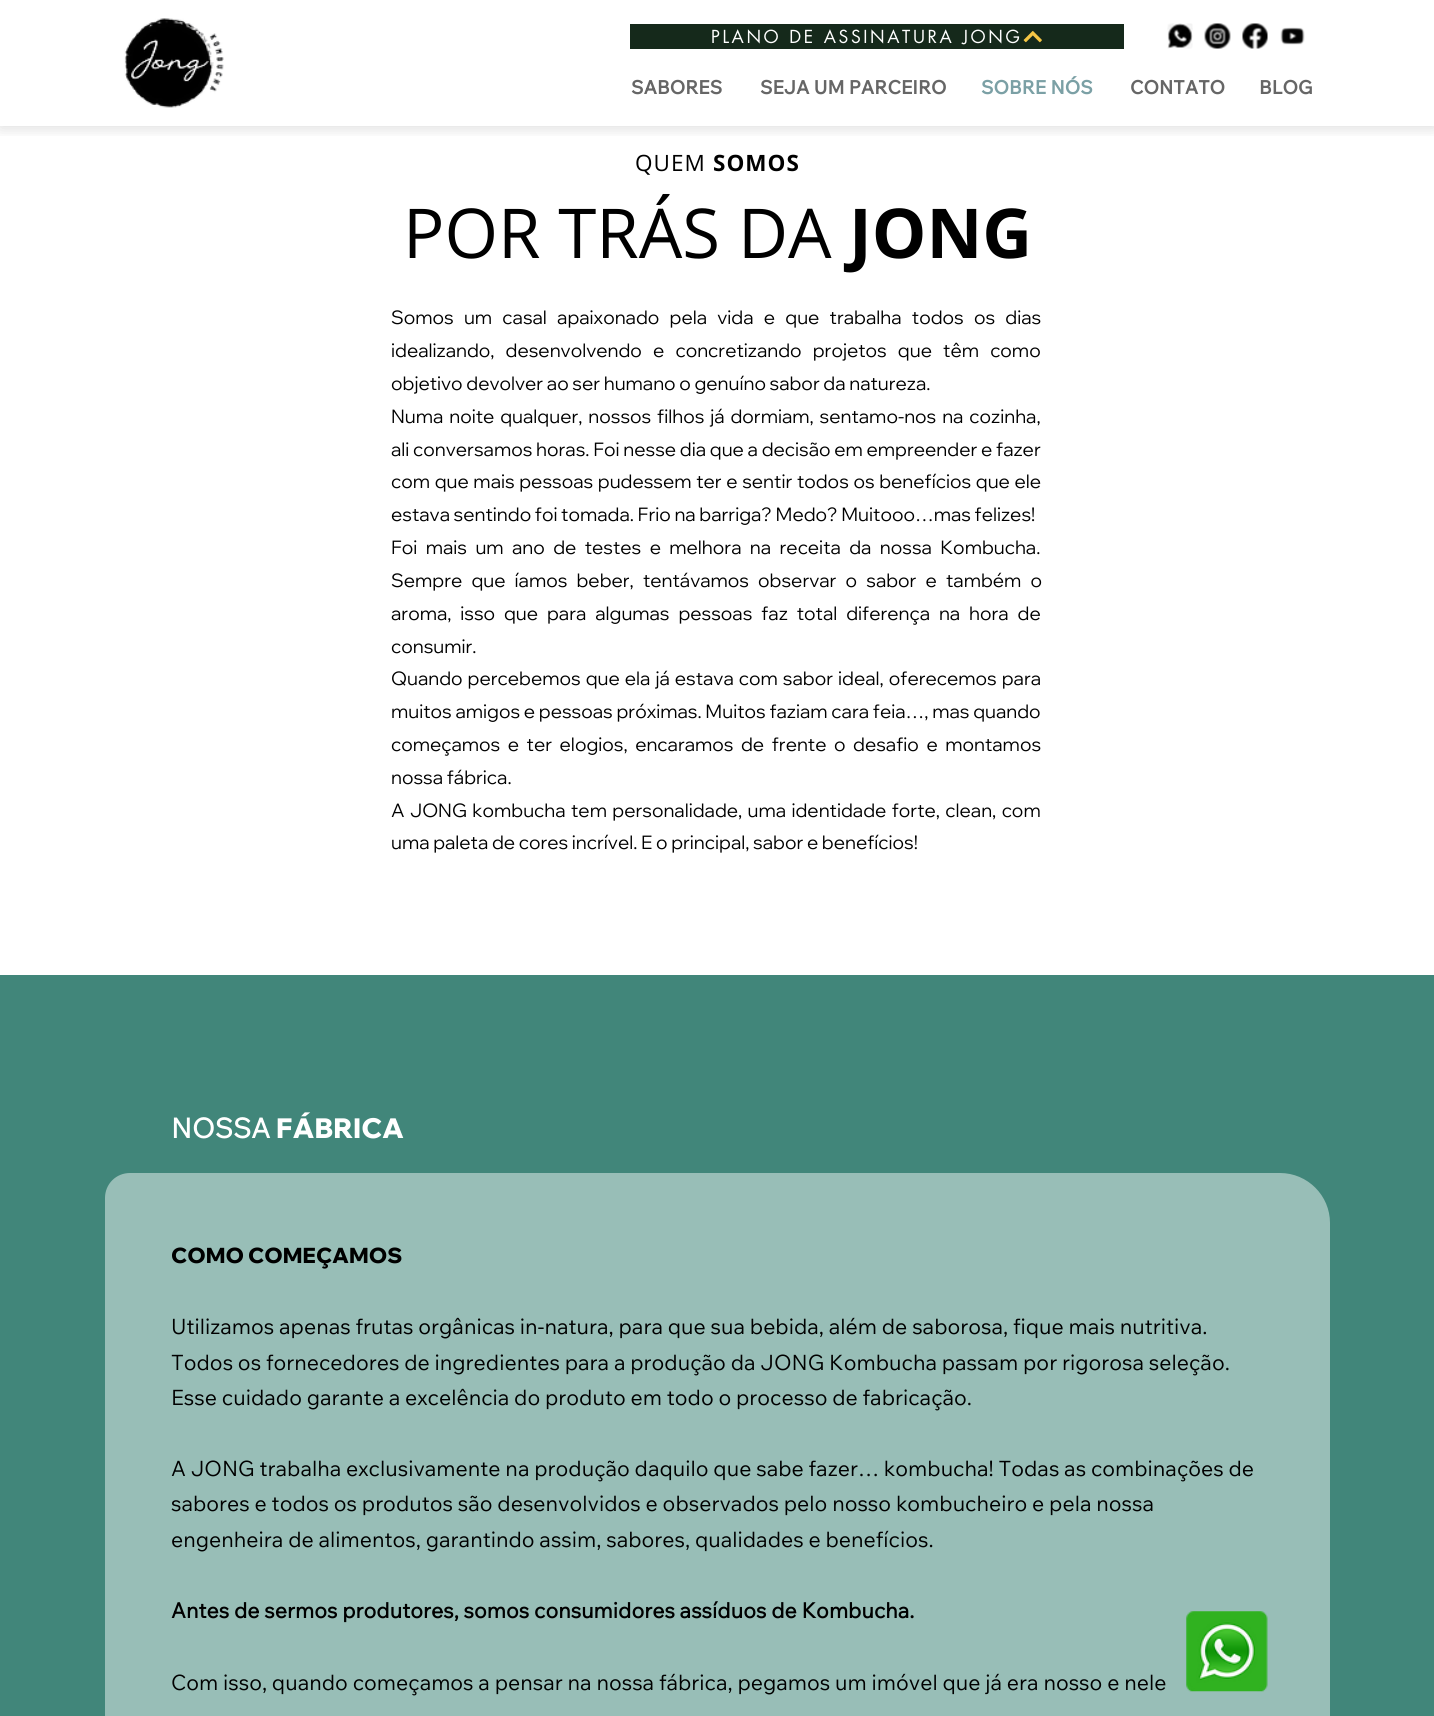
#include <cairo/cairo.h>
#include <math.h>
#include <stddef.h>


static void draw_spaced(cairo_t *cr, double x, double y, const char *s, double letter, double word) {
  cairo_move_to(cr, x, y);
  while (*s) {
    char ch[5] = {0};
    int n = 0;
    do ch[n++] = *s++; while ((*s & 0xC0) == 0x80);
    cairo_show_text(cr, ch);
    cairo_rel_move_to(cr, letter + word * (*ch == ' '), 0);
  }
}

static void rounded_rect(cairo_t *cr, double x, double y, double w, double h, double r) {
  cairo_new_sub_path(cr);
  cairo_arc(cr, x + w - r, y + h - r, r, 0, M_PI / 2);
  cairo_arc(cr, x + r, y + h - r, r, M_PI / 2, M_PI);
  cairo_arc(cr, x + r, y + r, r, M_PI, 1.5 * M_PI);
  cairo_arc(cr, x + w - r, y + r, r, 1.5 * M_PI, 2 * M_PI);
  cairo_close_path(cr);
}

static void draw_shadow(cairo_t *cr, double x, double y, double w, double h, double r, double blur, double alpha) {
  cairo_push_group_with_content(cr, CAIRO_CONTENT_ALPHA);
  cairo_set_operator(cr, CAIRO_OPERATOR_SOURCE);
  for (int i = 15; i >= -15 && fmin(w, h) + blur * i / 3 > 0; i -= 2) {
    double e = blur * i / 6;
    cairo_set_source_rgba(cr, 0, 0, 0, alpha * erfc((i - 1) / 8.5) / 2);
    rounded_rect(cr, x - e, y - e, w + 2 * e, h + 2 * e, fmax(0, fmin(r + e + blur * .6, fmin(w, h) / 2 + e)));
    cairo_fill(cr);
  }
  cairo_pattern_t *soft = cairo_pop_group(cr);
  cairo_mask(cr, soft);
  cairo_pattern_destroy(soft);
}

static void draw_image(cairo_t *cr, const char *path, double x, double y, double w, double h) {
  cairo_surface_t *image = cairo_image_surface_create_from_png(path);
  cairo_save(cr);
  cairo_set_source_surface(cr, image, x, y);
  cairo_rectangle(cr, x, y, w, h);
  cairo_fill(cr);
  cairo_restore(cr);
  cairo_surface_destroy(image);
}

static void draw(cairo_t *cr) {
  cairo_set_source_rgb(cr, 1, 1, 1);
  cairo_paint(cr);
  cairo_save(cr);
  cairo_rectangle(cr, 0, 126, 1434, 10);
  cairo_clip(cr);
  cairo_set_source_rgb(cr, 0, 0, 0);
  draw_shadow(cr, 0, 1, 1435, 127, 0, 7.5, 0.14);
  cairo_restore(cr);
  draw_image(cr, "images/1.png", 124, 18, 100, 90);
  cairo_set_source_rgb(cr, 21 / 255.0, 41 / 255.0, 27 / 255.0);
  cairo_rectangle(cr, 630, 24, 494, 25);
  cairo_fill(cr);
  draw_image(cr, "images/2.png", 1023, 31, 19, 12);
  draw_image(cr, "images/3.png", 1167, 23, 26, 26);
  draw_image(cr, "images/4.png", 1204, 23, 27, 26);
  draw_image(cr, "images/5.png", 1242, 23, 26, 26);
  draw_image(cr, "images/6.png", 1280, 27, 25, 18);
  cairo_set_source_rgb(cr, 65 / 255.0, 134 / 255.0, 122 / 255.0);
  cairo_rectangle(cr, 0, 975, 1434, 741);
  cairo_fill(cr);
  cairo_set_source_rgb(cr, 152 / 255.0, 190 / 255.0, 183 / 255.0);
  cairo_new_path(cr);
  cairo_move_to(cr, 130, 1173);
  cairo_line_to(cr, 1280, 1173);
  cairo_curve_to(cr, 1307.5, 1173, 1330, 1195.5, 1330, 1223);
  cairo_line_to(cr, 1330, 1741);
  cairo_curve_to(cr, 1330, 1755, 1319, 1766, 1305, 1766);
  cairo_line_to(cr, 130, 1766);
  cairo_curve_to(cr, 116, 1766, 105, 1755, 105, 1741);
  cairo_line_to(cr, 105, 1198);
  cairo_curve_to(cr, 105, 1184, 116, 1173, 130, 1173);
  cairo_close_path(cr);
  cairo_fill(cr);
  draw_image(cr, "images/7.png", 1186, 1611, 82, 81);
  cairo_select_font_face(cr, "futura", CAIRO_FONT_SLANT_NORMAL, CAIRO_FONT_WEIGHT_NORMAL);
  cairo_set_font_size(cr, 17.5);
  cairo_set_source_rgb(cr, 1, 1, 1);
  draw_spaced(cr, 711, 43, "PLANO DE ASSINATURA JONG", 2.6, 0);
  cairo_select_font_face(cr, "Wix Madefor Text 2", CAIRO_FONT_SLANT_NORMAL, CAIRO_FONT_WEIGHT_BOLD);
  cairo_set_font_size(cr, 18.75);
  cairo_set_source_rgb(cr, 102 / 255.0, 102 / 255.0, 102 / 255.0);
  cairo_move_to(cr, 631, 94);
  cairo_show_text(cr, "SABORES");
  cairo_move_to(cr, 760, 94);
  cairo_show_text(cr, "SEJA UM PARCEIRO");
  cairo_set_source_rgb(cr, 123 / 255.0, 160 / 255.0, 165 / 255.0);
  cairo_move_to(cr, 981, 94);
  cairo_show_text(cr, "SOBRE NÓS");
  cairo_set_source_rgb(cr, 102 / 255.0, 102 / 255.0, 102 / 255.0);
  cairo_move_to(cr, 1130, 94);
  cairo_show_text(cr, "CONTATO");
  cairo_move_to(cr, 1259, 94);
  cairo_show_text(cr, "BLOG");
  cairo_select_font_face(cr, "Open Sans", CAIRO_FONT_SLANT_NORMAL, CAIRO_FONT_WEIGHT_NORMAL);
  cairo_set_font_size(cr, 22.5);
  cairo_set_source_rgb(cr, 0, 0, 0);
  draw_spaced(cr, 635, 171, "QUEM", 1, 0);
  cairo_select_font_face(cr, "Open Sans", CAIRO_FONT_SLANT_NORMAL, CAIRO_FONT_WEIGHT_BOLD);
  draw_spaced(cr, 713, 171, "SOMOS", 1, 0);
  cairo_select_font_face(cr, "Open Sans", CAIRO_FONT_SLANT_NORMAL, CAIRO_FONT_WEIGHT_NORMAL);
  cairo_set_font_size(cr, 68.75);
  cairo_move_to(cr, 403, 258);
  cairo_show_text(cr, "POR TRÁS DA");
  cairo_select_font_face(cr, "Open Sans", CAIRO_FONT_SLANT_NORMAL, CAIRO_FONT_WEIGHT_BOLD);
  cairo_move_to(cr, 849, 258);
  cairo_show_text(cr, "JONG");
  cairo_select_font_face(cr, "Wix Madefor Display", CAIRO_FONT_SLANT_NORMAL, CAIRO_FONT_WEIGHT_NORMAL);
  cairo_set_font_size(cr, 18.75);
  draw_spaced(cr, 391, 324, "Somos um casal apaixonado pela vida e que trabalha todos os dias", 0, 6.6);
  draw_spaced(cr, 391, 357, "idealizando, desenvolvendo e concretizando projetos que têm como", 0, 7.5);
  cairo_move_to(cr, 391, 390);
  cairo_show_text(cr, "objetivo devolver ao ser humano o genuíno sabor da natureza.");
  draw_spaced(cr, 391, 423, "Numa noite qualquer, nossos filhos já dormiam, sentamo-nos na cozinha,", 0, 2.25);
  draw_spaced(cr, 391, 456, "ali conversamos horas. Foi nesse dia que a decisão em empreender e fazer", 0, 0.1);
  draw_spaced(cr, 391, 488, "com que mais pessoas pudessem ter e sentir todos os benefícios que ele", 0, 1);
  cairo_move_to(cr, 391, 521);
  cairo_show_text(cr, "estava sentindo foi tomada. Frio na barriga? Medo? Muitooo…mas felizes!");
  draw_spaced(cr, 391, 554, "Foi mais um ano de testes e melhora na receita da nossa Kombucha.", 0, 4.75);
  draw_spaced(cr, 391, 587, "Sempre que íamos beber, tentávamos observar o sabor e também o", 0, 5.5);
  draw_spaced(cr, 391, 620, "aroma, isso que para algumas pessoas faz total diferença na hora de", 0, 5.25);
  cairo_move_to(cr, 391, 653);
  cairo_show_text(cr, "consumir.");
  draw_spaced(cr, 391, 685, "Quando percebemos que ela já estava com sabor ideal, oferecemos para", 0, 1.4);
  draw_spaced(cr, 391, 718, "muitos amigos e pessoas próximas. Muitos faziam cara feia…, mas quando", 0, 0.1);
  draw_spaced(cr, 391, 751, "começamos e ter elogios, encaramos de frente o desafio e montamos", 0, 3.9);
  cairo_move_to(cr, 391, 784);
  cairo_show_text(cr, "nossa fábrica.");
  draw_spaced(cr, 391, 817, "A JONG kombucha tem personalidade, uma identidade forte, clean, com", 0, 1.75);
  cairo_move_to(cr, 391, 849);
  cairo_show_text(cr, "uma paleta de cores incrível. E o principal, sabor e benefícios!");
  cairo_select_font_face(cr, "Wix Madefor Text", CAIRO_FONT_SLANT_NORMAL, CAIRO_FONT_WEIGHT_BOLD);
  cairo_set_font_size(cr, 27.5);
  cairo_set_source_rgb(cr, 1, 1, 1);
  cairo_move_to(cr, 171, 1138);
  cairo_show_text(cr, "NOSSA");
  cairo_select_font_face(cr, "Wix Madefor Display ExtraBold", CAIRO_FONT_SLANT_NORMAL, CAIRO_FONT_WEIGHT_NORMAL);
  cairo_move_to(cr, 276, 1138);
  cairo_show_text(cr, "FÁBRICA");
  cairo_set_font_size(cr, 21.25);
  cairo_set_source_rgb(cr, 0, 0, 0);
  cairo_move_to(cr, 171, 1263);
  cairo_show_text(cr, "COMO COMEÇAMOS");
  cairo_select_font_face(cr, "Wix Madefor Text", CAIRO_FONT_SLANT_NORMAL, CAIRO_FONT_WEIGHT_NORMAL);
  cairo_move_to(cr, 171, 1334);
  cairo_show_text(cr, "Utilizamos apenas frutas orgânicas in-natura, para que sua bebida, além de saborosa, fique mais nutritiva.");
  cairo_move_to(cr, 171, 1370);
  cairo_show_text(cr, "Todos os fornecedores de ingredientes para a produção da JONG Kombucha passam por rigorosa seleção.");
  cairo_move_to(cr, 171, 1405);
  cairo_show_text(cr, "Esse cuidado garante a excelência do produto em todo o processo de fabricação.");
  cairo_move_to(cr, 171, 1476);
  cairo_show_text(cr, "A JONG trabalha exclusivamente na produção daquilo que sabe fazer… kombucha! Todas as combinações de");
  cairo_move_to(cr, 171, 1511);
  cairo_show_text(cr, "sabores e todos os produtos são desenvolvidos e observados pelo nosso kombucheiro e pela nossa");
  cairo_move_to(cr, 171, 1547);
  cairo_show_text(cr, "engenheira de alimentos, garantindo assim, sabores, qualidades e benefícios.");
  cairo_select_font_face(cr, "Wix Madefor Text", CAIRO_FONT_SLANT_NORMAL, CAIRO_FONT_WEIGHT_BOLD);
  cairo_move_to(cr, 171, 1618);
  cairo_show_text(cr, "Antes de sermos produtores, somos consumidores assíduos de Kombucha.");
  cairo_select_font_face(cr, "Wix Madefor Text", CAIRO_FONT_SLANT_NORMAL, CAIRO_FONT_WEIGHT_NORMAL);
  cairo_move_to(cr, 171, 1690);
  cairo_show_text(cr, "Com isso, quando começamos a pensar na nossa fábrica, pegamos um imóvel que já era nosso e nele");
}

int main(void) {
  cairo_surface_t *surface = cairo_image_surface_create(CAIRO_FORMAT_RGB24, 1434, 1716);
  cairo_t *cr = cairo_create(surface);
  cairo_font_options_t *options = cairo_font_options_create();
  cairo_font_options_set_hint_metrics(options, CAIRO_HINT_METRICS_OFF);
  cairo_font_options_set_hint_style(options, CAIRO_HINT_STYLE_NONE);
  cairo_set_font_options(cr, options);
  cairo_set_miter_limit(cr, 4);
  draw(cr);
  cairo_surface_write_to_png(surface, "out.png");
  cairo_font_options_destroy(options);
  cairo_destroy(cr);
  cairo_surface_destroy(surface);
  return 0;
}
